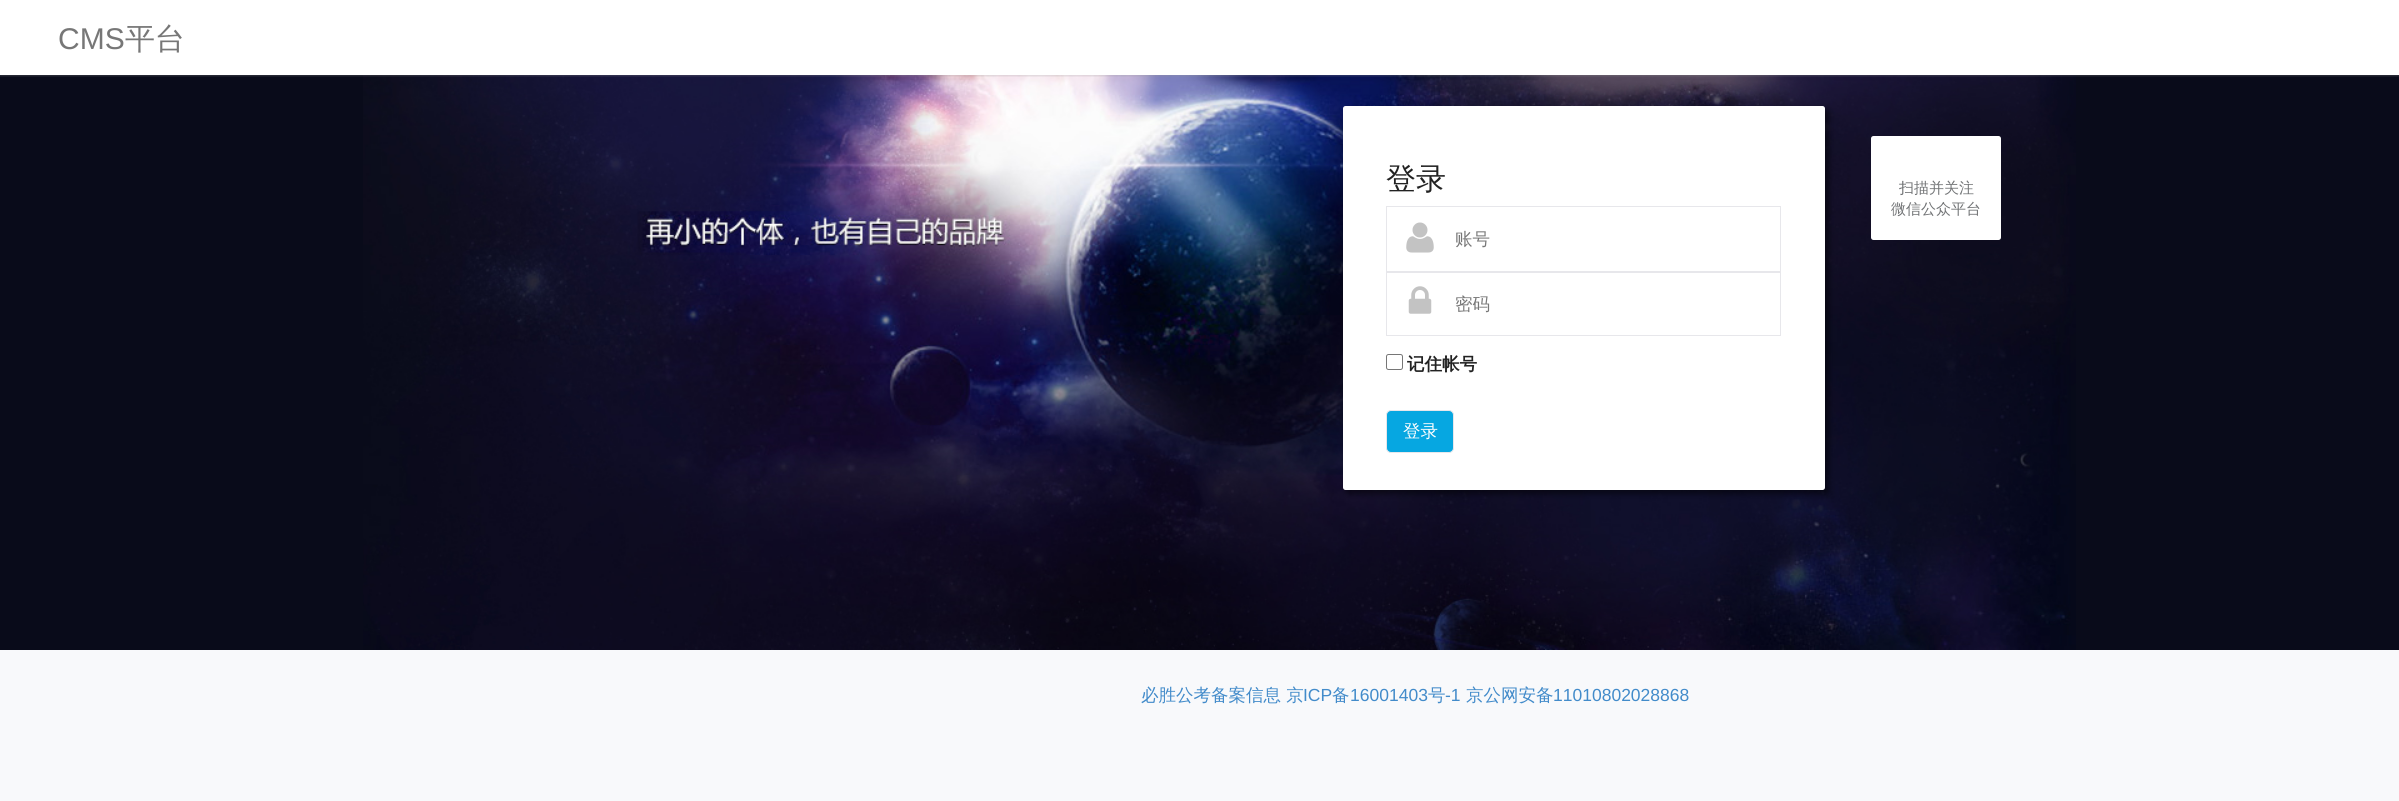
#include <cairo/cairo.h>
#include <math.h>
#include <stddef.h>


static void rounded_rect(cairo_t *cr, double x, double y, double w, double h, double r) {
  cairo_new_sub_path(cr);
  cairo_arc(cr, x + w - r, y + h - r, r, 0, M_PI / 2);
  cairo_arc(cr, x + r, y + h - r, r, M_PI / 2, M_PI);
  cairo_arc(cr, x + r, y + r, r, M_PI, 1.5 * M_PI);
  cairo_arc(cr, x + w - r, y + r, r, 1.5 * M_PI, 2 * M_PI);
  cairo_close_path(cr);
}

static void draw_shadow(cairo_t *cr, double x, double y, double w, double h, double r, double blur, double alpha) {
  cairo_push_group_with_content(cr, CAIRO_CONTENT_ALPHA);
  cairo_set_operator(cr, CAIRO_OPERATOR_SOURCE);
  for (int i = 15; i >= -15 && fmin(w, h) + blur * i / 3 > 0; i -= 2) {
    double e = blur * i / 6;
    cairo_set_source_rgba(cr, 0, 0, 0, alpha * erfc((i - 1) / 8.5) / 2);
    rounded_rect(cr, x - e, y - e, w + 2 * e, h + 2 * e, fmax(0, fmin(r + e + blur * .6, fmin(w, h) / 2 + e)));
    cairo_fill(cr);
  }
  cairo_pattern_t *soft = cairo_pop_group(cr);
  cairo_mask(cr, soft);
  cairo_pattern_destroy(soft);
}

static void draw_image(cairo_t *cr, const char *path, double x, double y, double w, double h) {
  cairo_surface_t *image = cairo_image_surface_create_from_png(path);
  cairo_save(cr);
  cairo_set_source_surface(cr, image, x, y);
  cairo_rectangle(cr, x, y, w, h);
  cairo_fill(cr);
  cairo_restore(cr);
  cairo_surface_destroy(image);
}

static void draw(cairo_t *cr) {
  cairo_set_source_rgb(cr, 248 / 255.0, 249 / 255.0, 251 / 255.0);
  cairo_paint(cr);
  cairo_set_source_rgb(cr, 1, 1, 1);
  cairo_rectangle(cr, 0, 0, 2399, 75);
  cairo_fill(cr);
  cairo_set_source_rgb(cr, 9 / 255.0, 11 / 255.0, 26 / 255.0);
  cairo_rectangle(cr, 0, 75, 2399, 575);
  cairo_fill(cr);
  draw_image(cr, "images/1.png", 363, 75, 1713, 575);
  cairo_save(cr);
  cairo_rectangle(cr, 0, 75, 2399, 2);
  cairo_clip(cr);
  cairo_set_source_rgb(cr, 150 / 255.0, 150 / 255.0, 150 / 255.0);
  draw_shadow(cr, 0, 1, 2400, 75, 0, 1, 0.3);
  cairo_restore(cr);
  cairo_set_source_rgb(cr, 0, 0, 0);
  draw_shadow(cr, 1346, 110, 483, 384, 2.5, 3, 0.5);
  cairo_set_source_rgb(cr, 1, 1, 1);
  rounded_rect(cr, 1343, 106, 482, 384, 2.5);
  cairo_fill(cr);
  rounded_rect(cr, 1871, 136, 130, 104, 2.5);
  cairo_fill(cr);
  cairo_rectangle(cr, 1386.5, 206.5, 394, 66);
  cairo_set_source_rgb(cr, 231 / 255.0, 231 / 255.0, 235 / 255.0);
  cairo_set_line_width(cr, 1);
  cairo_stroke(cr);
  draw_image(cr, "images/2.png", 1406, 222, 28, 31);
  cairo_rectangle(cr, 1386.5, 271.5, 394, 64);
  cairo_stroke(cr);
  draw_image(cr, "images/3.png", 1408, 286, 24, 28);
  rounded_rect(cr, 1386.5, 354.5, 16, 15, 2);
  cairo_set_source_rgb(cr, 118 / 255.0, 118 / 255.0, 118 / 255.0);
  cairo_stroke(cr);
  cairo_set_source_rgb(cr, 6 / 255.0, 167 / 255.0, 225 / 255.0);
  rounded_rect(cr, 1386.5, 410.5, 67, 42, 4.5);
  cairo_fill_preserve(cr);
  cairo_set_source_rgb(cr, 231 / 255.0, 231 / 255.0, 235 / 255.0);
  cairo_stroke(cr);
  cairo_select_font_face(cr, "Liberation Sans", CAIRO_FONT_SLANT_NORMAL, CAIRO_FONT_WEIGHT_NORMAL);
  cairo_set_font_size(cr, 30);
  cairo_set_source_rgb(cr, 119 / 255.0, 119 / 255.0, 119 / 255.0);
  cairo_move_to(cr, 58, 49);
  cairo_show_text(cr, "CMS");
  cairo_select_font_face(cr, "WenQuanYi Zen Hei Medium", CAIRO_FONT_SLANT_NORMAL, CAIRO_FONT_WEIGHT_NORMAL);
  cairo_move_to(cr, 125, 49);
  cairo_show_text(cr, "平台");
  cairo_set_source_rgb(cr, 34 / 255.0, 34 / 255.0, 34 / 255.0);
  cairo_move_to(cr, 1386, 189);
  cairo_show_text(cr, "登录");
  cairo_set_font_size(cr, 15);
  cairo_set_source_rgb(cr, 113 / 255.0, 115 / 255.0, 117 / 255.0);
  cairo_move_to(cr, 1899, 193);
  cairo_show_text(cr, "扫描并关注");
  cairo_move_to(cr, 1891, 214);
  cairo_show_text(cr, "微信公众平台");
  cairo_set_font_size(cr, 17.5);
  cairo_set_source_rgb(cr, 119 / 255.0, 119 / 255.0, 119 / 255.0);
  cairo_move_to(cr, 1455, 245);
  cairo_show_text(cr, "账号");
  cairo_move_to(cr, 1455, 310);
  cairo_show_text(cr, "密码");
  cairo_select_font_face(cr, "WenQuanYi Zen Hei", CAIRO_FONT_SLANT_NORMAL, CAIRO_FONT_WEIGHT_BOLD);
  cairo_set_source_rgb(cr, 34 / 255.0, 34 / 255.0, 34 / 255.0);
  cairo_move_to(cr, 1407, 370);
  cairo_show_text(cr, "记住帐号");
  cairo_select_font_face(cr, "WenQuanYi Zen Hei Medium", CAIRO_FONT_SLANT_NORMAL, CAIRO_FONT_WEIGHT_NORMAL);
  cairo_set_source_rgb(cr, 1, 1, 1);
  cairo_move_to(cr, 1403, 437);
  cairo_show_text(cr, "登录");
  cairo_set_source_rgb(cr, 66 / 255.0, 139 / 255.0, 202 / 255.0);
  cairo_move_to(cr, 1141, 701);
  cairo_show_text(cr, "必胜公考备案信息 京");
  cairo_select_font_face(cr, "Liberation Sans", CAIRO_FONT_SLANT_NORMAL, CAIRO_FONT_WEIGHT_NORMAL);
  cairo_move_to(cr, 1303, 701);
  cairo_show_text(cr, "ICP");
  cairo_select_font_face(cr, "WenQuanYi Zen Hei Medium", CAIRO_FONT_SLANT_NORMAL, CAIRO_FONT_WEIGHT_NORMAL);
  cairo_move_to(cr, 1332, 701);
  cairo_show_text(cr, "备");
  cairo_select_font_face(cr, "Liberation Sans", CAIRO_FONT_SLANT_NORMAL, CAIRO_FONT_WEIGHT_NORMAL);
  cairo_move_to(cr, 1350, 701);
  cairo_show_text(cr, "16001403");
  cairo_select_font_face(cr, "WenQuanYi Zen Hei Medium", CAIRO_FONT_SLANT_NORMAL, CAIRO_FONT_WEIGHT_NORMAL);
  cairo_move_to(cr, 1428, 701);
  cairo_show_text(cr, "号");
  cairo_select_font_face(cr, "Liberation Sans", CAIRO_FONT_SLANT_NORMAL, CAIRO_FONT_WEIGHT_NORMAL);
  cairo_move_to(cr, 1445, 701);
  cairo_show_text(cr, "-1");
  cairo_select_font_face(cr, "WenQuanYi Zen Hei Medium", CAIRO_FONT_SLANT_NORMAL, CAIRO_FONT_WEIGHT_NORMAL);
  cairo_move_to(cr, 1466, 701);
  cairo_show_text(cr, "京公网安备");
  cairo_select_font_face(cr, "Liberation Sans", CAIRO_FONT_SLANT_NORMAL, CAIRO_FONT_WEIGHT_NORMAL);
  cairo_move_to(cr, 1553, 701);
  cairo_show_text(cr, "11010802028868");
}

int main(void) {
  cairo_surface_t *surface = cairo_image_surface_create(CAIRO_FORMAT_RGB24, 2399, 801);
  cairo_t *cr = cairo_create(surface);
  cairo_font_options_t *options = cairo_font_options_create();
  cairo_font_options_set_hint_metrics(options, CAIRO_HINT_METRICS_OFF);
  cairo_font_options_set_hint_style(options, CAIRO_HINT_STYLE_NONE);
  cairo_set_font_options(cr, options);
  cairo_set_miter_limit(cr, 4);
  draw(cr);
  cairo_surface_write_to_png(surface, "out.png");
  cairo_font_options_destroy(options);
  cairo_destroy(cr);
  cairo_surface_destroy(surface);
  return 0;
}
